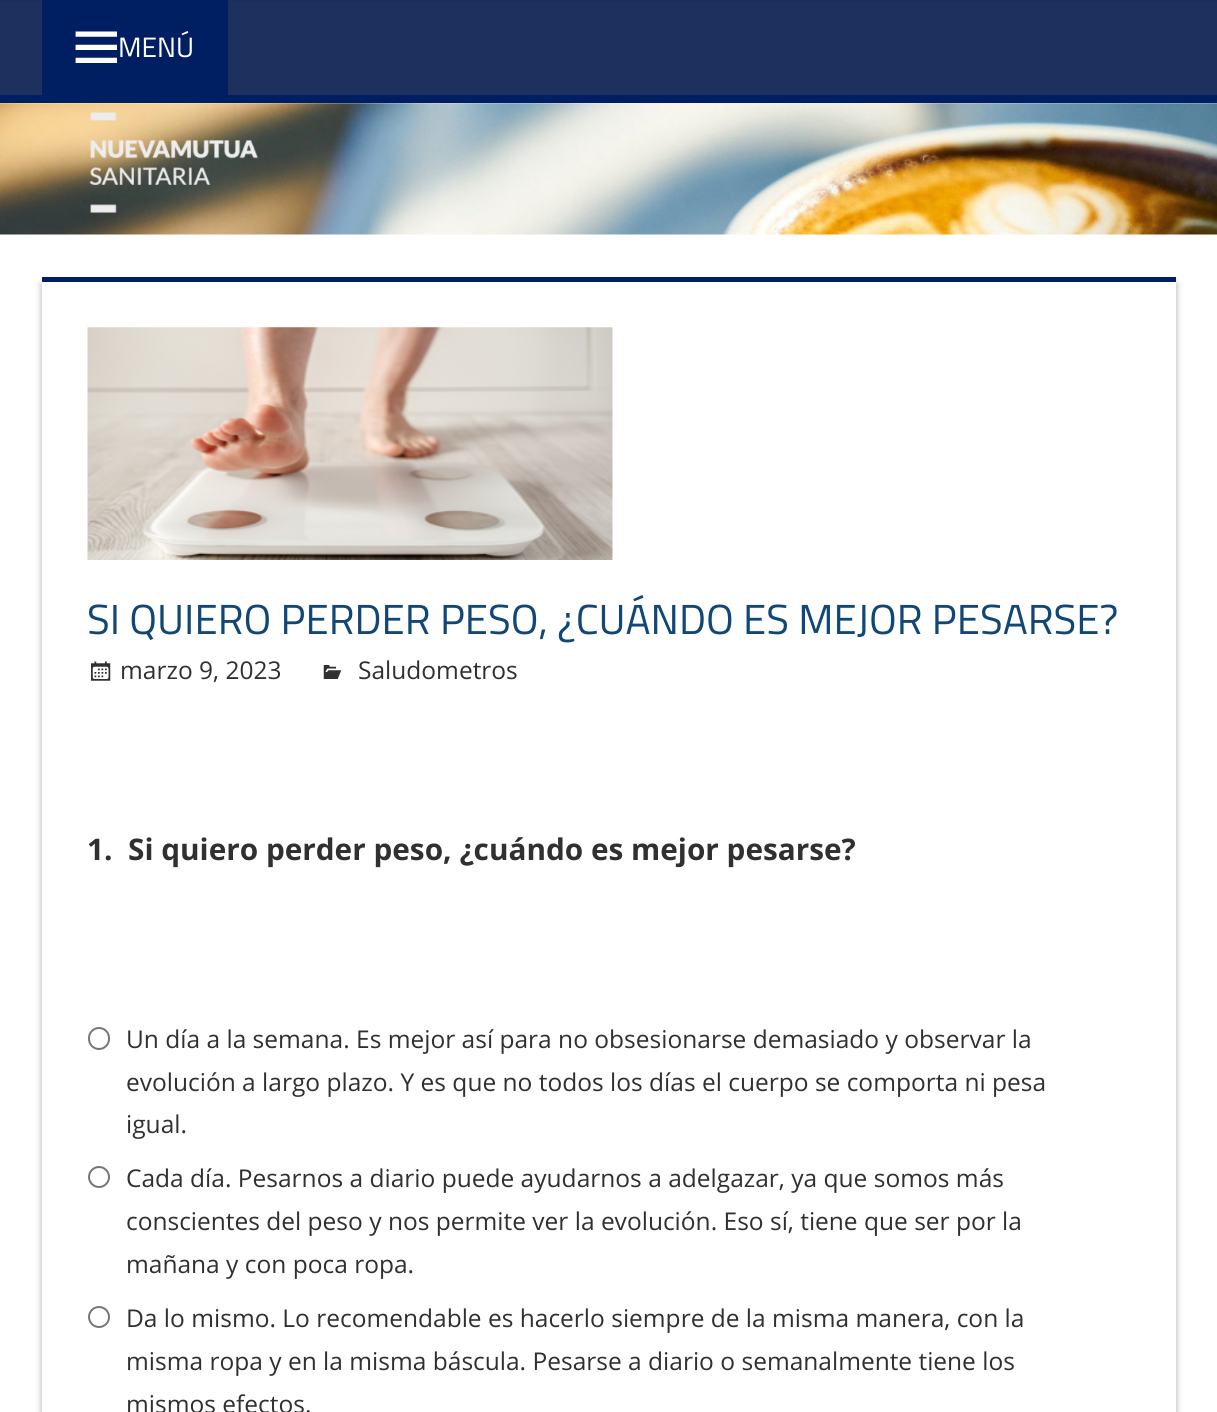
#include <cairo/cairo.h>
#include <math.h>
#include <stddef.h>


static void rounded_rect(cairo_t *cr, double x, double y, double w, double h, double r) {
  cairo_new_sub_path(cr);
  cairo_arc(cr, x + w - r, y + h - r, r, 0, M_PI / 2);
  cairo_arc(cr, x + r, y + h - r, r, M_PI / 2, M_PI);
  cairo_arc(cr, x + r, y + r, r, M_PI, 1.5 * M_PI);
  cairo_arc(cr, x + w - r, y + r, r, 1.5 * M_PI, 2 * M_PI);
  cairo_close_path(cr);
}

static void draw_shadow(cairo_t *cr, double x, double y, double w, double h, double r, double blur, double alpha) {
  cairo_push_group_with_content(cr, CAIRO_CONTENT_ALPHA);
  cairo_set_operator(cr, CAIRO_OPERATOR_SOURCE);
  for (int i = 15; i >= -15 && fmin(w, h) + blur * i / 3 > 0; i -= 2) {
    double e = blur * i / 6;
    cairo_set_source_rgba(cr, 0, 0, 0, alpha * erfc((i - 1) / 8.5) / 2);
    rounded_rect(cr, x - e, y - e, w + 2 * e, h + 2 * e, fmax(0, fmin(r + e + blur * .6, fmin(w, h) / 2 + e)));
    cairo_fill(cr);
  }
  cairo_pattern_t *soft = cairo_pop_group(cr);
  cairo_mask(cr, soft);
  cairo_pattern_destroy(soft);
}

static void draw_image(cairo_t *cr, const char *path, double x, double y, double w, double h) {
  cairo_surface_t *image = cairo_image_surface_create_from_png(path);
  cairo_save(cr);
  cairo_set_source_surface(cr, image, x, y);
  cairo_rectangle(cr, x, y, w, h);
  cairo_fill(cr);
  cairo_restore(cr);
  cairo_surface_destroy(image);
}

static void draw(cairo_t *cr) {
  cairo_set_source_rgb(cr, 1, 1, 1);
  cairo_paint(cr);
  cairo_set_source_rgb(cr, 30 / 255.0, 49 / 255.0, 94 / 255.0);
  cairo_rectangle(cr, 0, 2, 1217, 93);
  cairo_fill(cr);
  cairo_set_source_rgb(cr, 29 / 255.0, 47 / 255.0, 89 / 255.0);
  cairo_rectangle(cr, 0, 0, 1217, 2);
  cairo_fill(cr);
  cairo_set_source_rgb(cr, 0, 30 / 255.0, 98 / 255.0);
  cairo_rectangle(cr, 0, 95, 1217, 8);
  cairo_fill(cr);
  cairo_rectangle(cr, 42, 0, 186, 95);
  cairo_fill(cr);
  draw_image(cr, "images/1.png", 75, 31, 42, 32);
  draw_image(cr, "images/2.png", 0, 103, 1217, 132);
  cairo_save(cr);
  cairo_set_fill_rule(cr, CAIRO_FILL_RULE_EVEN_ODD);
  cairo_new_path(cr);
  cairo_move_to(cr, 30, 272);
  cairo_line_to(cr, 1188, 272);
  cairo_line_to(cr, 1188, 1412);
  cairo_line_to(cr, 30, 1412);
  cairo_close_path(cr);
  cairo_move_to(cr, 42, 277);
  cairo_line_to(cr, 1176, 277);
  cairo_line_to(cr, 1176, 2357);
  cairo_line_to(cr, 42, 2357);
  cairo_close_path(cr);
  cairo_clip(cr);
  cairo_set_source_rgb(cr, 170 / 255.0, 170 / 255.0, 170 / 255.0);
  draw_shadow(cr, 42, 284, 1134, 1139, 0, 3.5, 1);
  cairo_restore(cr);
  cairo_rectangle(cr, 42, 277, 1134, 5);
  cairo_fill(cr);
  draw_image(cr, "images/3.png", 87, 327, 526, 233);
  draw_image(cr, "images/4.png", 91, 661, 20, 20);
  draw_image(cr, "images/5.png", 323, 665, 19, 14);
  rounded_rect(cr, 89, 1028, 20, 21, 10);
  cairo_set_source_rgb(cr, 118 / 255.0, 118 / 255.0, 118 / 255.0);
  cairo_stroke(cr);
  cairo_arc(cr, 99, 1177, 10, 0, 2 * M_PI);
  cairo_stroke(cr);
  cairo_arc(cr, 99, 1317, 10, 0, 2 * M_PI);
  cairo_stroke(cr);
  cairo_select_font_face(cr, "Titillium Web", CAIRO_FONT_SLANT_NORMAL, CAIRO_FONT_WEIGHT_NORMAL);
  cairo_set_font_size(cr, 28);
  cairo_set_source_rgb(cr, 1, 1, 1);
  cairo_move_to(cr, 118, 57);
  cairo_show_text(cr, "MENÚ");
  cairo_set_font_size(cr, 42);
  cairo_set_source_rgb(cr, 16 / 255.0, 71 / 255.0, 119 / 255.0);
  cairo_move_to(cr, 87, 634);
  cairo_show_text(cr, "SI QUIERO PERDER PESO, ¿CUÁNDO ES MEJOR PESARSE?");
  cairo_select_font_face(cr, "Open Sans", CAIRO_FONT_SLANT_NORMAL, CAIRO_FONT_WEIGHT_NORMAL);
  cairo_set_font_size(cr, 24.5);
  cairo_set_source_rgb(cr, 48 / 255.0, 48 / 255.0, 48 / 255.0);
  cairo_move_to(cr, 120, 679);
  cairo_show_text(cr, "marzo 9, 2023");
  cairo_move_to(cr, 358, 679);
  cairo_show_text(cr, "Saludometros");
  cairo_select_font_face(cr, "Open Sans", CAIRO_FONT_SLANT_NORMAL, CAIRO_FONT_WEIGHT_BOLD);
  cairo_set_font_size(cr, 29.75);
  cairo_move_to(cr, 87, 860);
  cairo_show_text(cr, "1.");
  cairo_move_to(cr, 128, 860);
  cairo_show_text(cr, "Si quiero perder peso, ¿cuándo es mejor pesarse?");
  cairo_select_font_face(cr, "Open Sans", CAIRO_FONT_SLANT_NORMAL, CAIRO_FONT_WEIGHT_NORMAL);
  cairo_set_font_size(cr, 24.5);
  cairo_move_to(cr, 126, 1048);
  cairo_show_text(cr, "Un día a la semana. Es mejor así para no obsesionarse demasiado y observar la");
  cairo_move_to(cr, 126, 1091);
  cairo_show_text(cr, "evolución a largo plazo. Y es que no todos los días el cuerpo se comporta ni pesa");
  cairo_move_to(cr, 126, 1133);
  cairo_show_text(cr, "igual.");
  cairo_move_to(cr, 126, 1187);
  cairo_show_text(cr, "Cada día. Pesarnos a diario puede ayudarnos a adelgazar, ya que somos más");
  cairo_move_to(cr, 126, 1230);
  cairo_show_text(cr, "conscientes del peso y nos permite ver la evolución. Eso sí, tiene que ser por la");
  cairo_move_to(cr, 126, 1273);
  cairo_show_text(cr, "mañana y con poca ropa.");
  cairo_move_to(cr, 126, 1327);
  cairo_show_text(cr, "Da lo mismo. Lo recomendable es hacerlo siempre de la misma manera, con la");
  cairo_move_to(cr, 126, 1370);
  cairo_show_text(cr, "misma ropa y en la misma báscula. Pesarse a diario o semanalmente tiene los");
  cairo_move_to(cr, 126, 1413);
  cairo_show_text(cr, "mismos efectos.");
}

int main(void) {
  cairo_surface_t *surface = cairo_image_surface_create(CAIRO_FORMAT_RGB24, 1217, 1412);
  cairo_t *cr = cairo_create(surface);
  cairo_font_options_t *options = cairo_font_options_create();
  cairo_font_options_set_hint_metrics(options, CAIRO_HINT_METRICS_OFF);
  cairo_font_options_set_hint_style(options, CAIRO_HINT_STYLE_NONE);
  cairo_set_font_options(cr, options);
  cairo_set_miter_limit(cr, 4);
  draw(cr);
  cairo_surface_write_to_png(surface, "out.png");
  cairo_font_options_destroy(options);
  cairo_destroy(cr);
  cairo_surface_destroy(surface);
  return 0;
}
